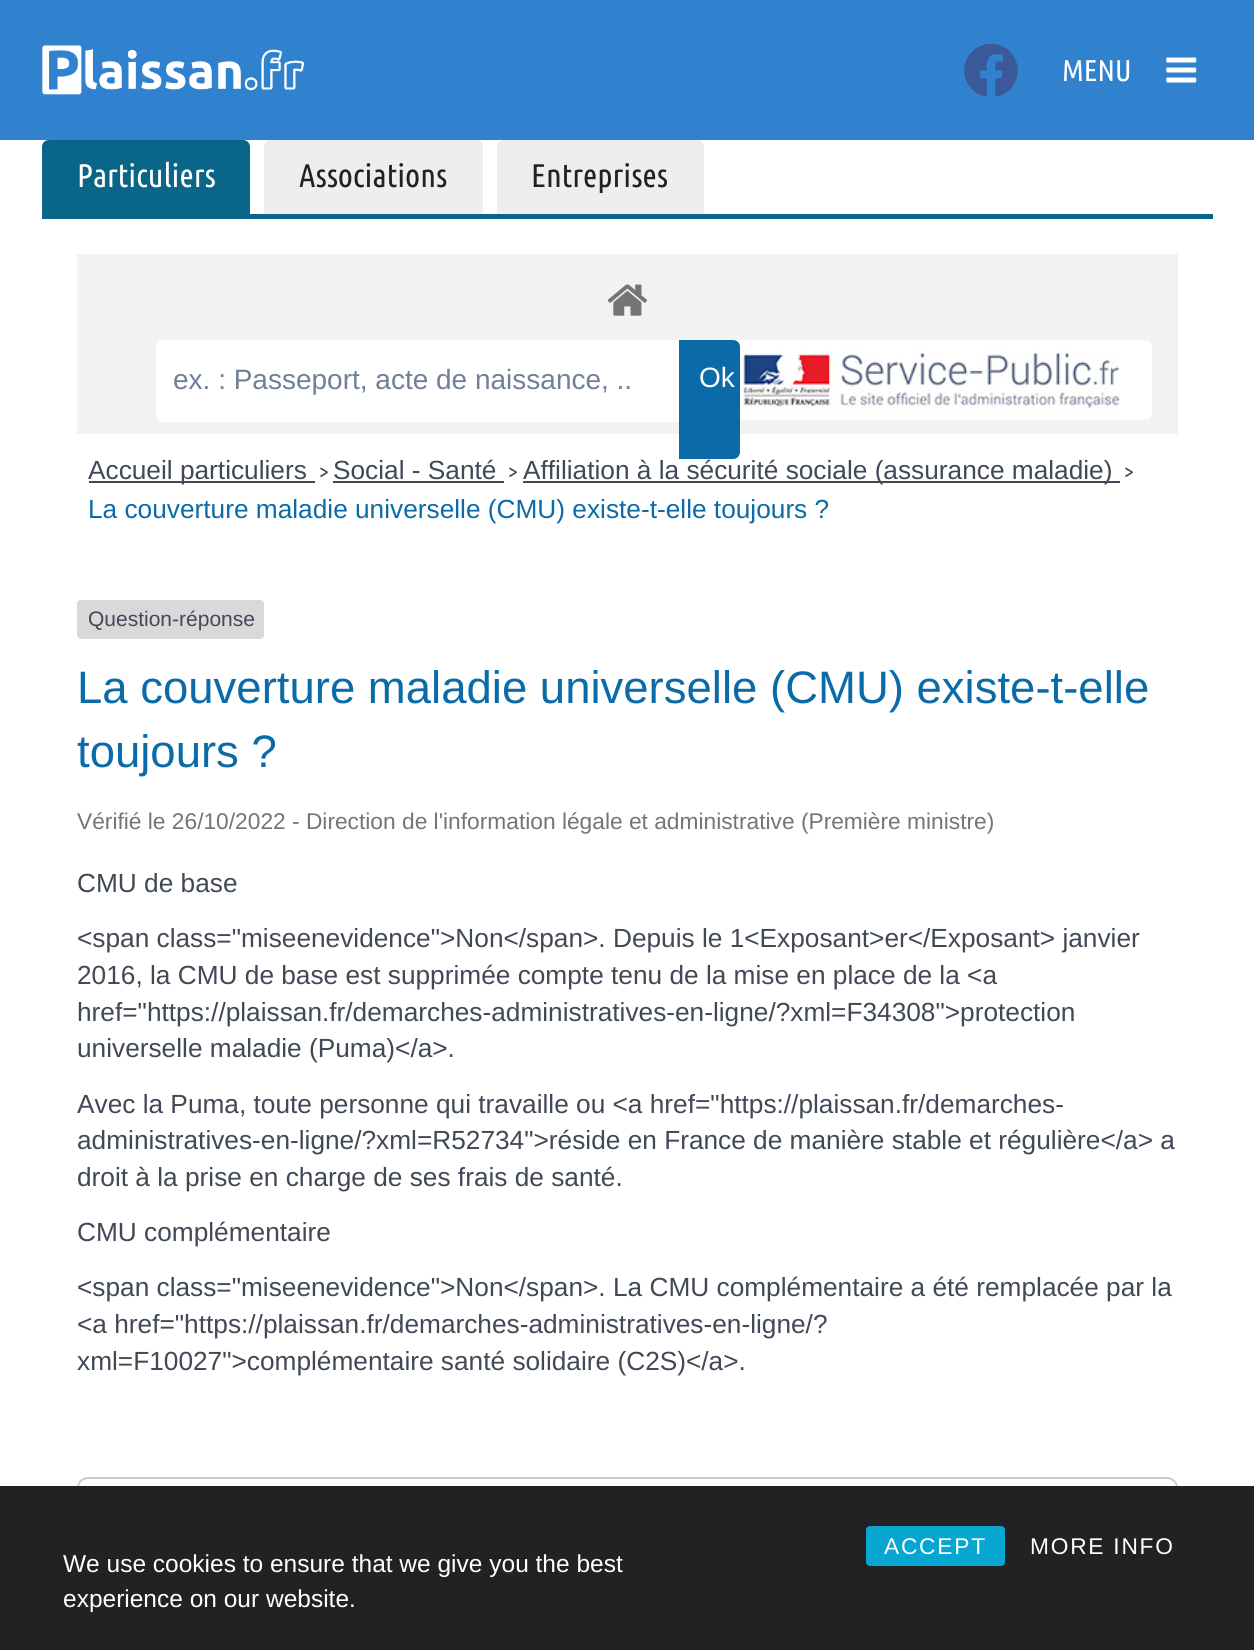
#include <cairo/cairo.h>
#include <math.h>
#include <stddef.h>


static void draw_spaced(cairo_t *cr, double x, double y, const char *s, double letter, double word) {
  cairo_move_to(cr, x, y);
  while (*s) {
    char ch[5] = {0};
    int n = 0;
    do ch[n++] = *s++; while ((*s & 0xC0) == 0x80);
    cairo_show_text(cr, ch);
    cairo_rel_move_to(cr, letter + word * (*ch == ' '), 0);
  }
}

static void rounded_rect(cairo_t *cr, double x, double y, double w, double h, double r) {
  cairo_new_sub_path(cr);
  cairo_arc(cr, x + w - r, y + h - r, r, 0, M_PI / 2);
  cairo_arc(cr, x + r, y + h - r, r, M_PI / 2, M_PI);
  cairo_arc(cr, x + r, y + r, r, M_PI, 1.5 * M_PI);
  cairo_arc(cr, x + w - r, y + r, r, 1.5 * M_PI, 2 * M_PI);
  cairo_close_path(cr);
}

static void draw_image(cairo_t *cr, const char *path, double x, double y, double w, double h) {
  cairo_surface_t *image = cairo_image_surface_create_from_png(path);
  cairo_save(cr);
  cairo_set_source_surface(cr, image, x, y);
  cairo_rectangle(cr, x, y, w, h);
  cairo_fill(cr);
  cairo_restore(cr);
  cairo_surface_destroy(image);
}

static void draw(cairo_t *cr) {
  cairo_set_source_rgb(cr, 1, 1, 1);
  cairo_paint(cr);
  cairo_set_source_rgb(cr, 49 / 255.0, 130 / 255.0, 206 / 255.0);
  cairo_rectangle(cr, 0, 0, 1254, 140);
  cairo_fill(cr);
  draw_image(cr, "images/1.png", 42, 45, 263, 50);
  draw_image(cr, "images/2.png", 964, 44, 54, 52);
  draw_image(cr, "images/3.png", 1166, 57, 31, 26);
  cairo_set_source_rgb(cr, 10 / 255.0, 102 / 255.0, 137 / 255.0);
  cairo_new_path(cr);
  cairo_move_to(cr, 49, 140);
  cairo_line_to(cr, 243, 140);
  cairo_curve_to(cr, 247, 140, 250, 143, 250, 147);
  cairo_line_to(cr, 250, 214);
  cairo_line_to(cr, 42, 214);
  cairo_line_to(cr, 42, 147);
  cairo_curve_to(cr, 42, 143, 45, 140, 49, 140);
  cairo_close_path(cr);
  cairo_fill(cr);
  cairo_set_source_rgb(cr, 238 / 255.0, 238 / 255.0, 238 / 255.0);
  cairo_new_path(cr);
  cairo_move_to(cr, 271, 140);
  cairo_line_to(cr, 476, 140);
  cairo_curve_to(cr, 480, 140, 483, 143, 483, 147);
  cairo_line_to(cr, 483, 214);
  cairo_line_to(cr, 264, 214);
  cairo_line_to(cr, 264, 147);
  cairo_curve_to(cr, 264, 143, 267, 140, 271, 140);
  cairo_close_path(cr);
  cairo_fill(cr);
  cairo_new_path(cr);
  cairo_move_to(cr, 504, 140);
  cairo_line_to(cr, 697, 140);
  cairo_curve_to(cr, 701, 140, 704, 143, 704, 147);
  cairo_line_to(cr, 704, 214);
  cairo_line_to(cr, 497, 214);
  cairo_line_to(cr, 497, 147);
  cairo_curve_to(cr, 497, 143, 500, 140, 504, 140);
  cairo_close_path(cr);
  cairo_fill(cr);
  cairo_set_source_rgb(cr, 10 / 255.0, 102 / 255.0, 137 / 255.0);
  cairo_rectangle(cr, 42, 214, 1171, 5);
  cairo_fill(cr);
  cairo_set_source_rgb(cr, 242 / 255.0, 242 / 255.0, 242 / 255.0);
  cairo_rectangle(cr, 77, 254, 1101, 180);
  cairo_fill(cr);
  draw_image(cr, "images/4.png", 607, 284, 40, 32);
  cairo_set_source_rgb(cr, 1, 1, 1);
  cairo_new_path(cr);
  cairo_move_to(cr, 163, 340);
  cairo_line_to(cr, 679, 340);
  cairo_line_to(cr, 679, 422);
  cairo_line_to(cr, 163, 422);
  cairo_curve_to(cr, 159, 422, 156, 419, 156, 415);
  cairo_line_to(cr, 156, 347);
  cairo_curve_to(cr, 156, 343, 159, 340, 163, 340);
  cairo_close_path(cr);
  cairo_fill(cr);
  rounded_rect(cr, 714, 340, 438, 80, 7);
  cairo_fill(cr);
  cairo_set_source_rgb(cr, 11 / 255.0, 107 / 255.0, 168 / 255.0);
  cairo_new_path(cr);
  cairo_move_to(cr, 679, 340);
  cairo_line_to(cr, 733, 340);
  cairo_curve_to(cr, 737, 340, 740, 343, 740, 347);
  cairo_line_to(cr, 740, 452);
  cairo_curve_to(cr, 740, 456, 737, 459, 733, 459);
  cairo_line_to(cr, 679, 459);
  cairo_close_path(cr);
  cairo_fill(cr);
  draw_image(cr, "images/5.png", 743, 350, 378, 61);
  cairo_set_source_rgb(cr, 65 / 255.0, 72 / 255.0, 86 / 255.0);
  cairo_rectangle(cr, 89, 481, 226, 2);
  cairo_fill(cr);
  cairo_rectangle(cr, 333, 481, 171, 2);
  cairo_fill(cr);
  cairo_rectangle(cr, 523, 481, 597, 2);
  cairo_fill(cr);
  cairo_set_source_rgb(cr, 217 / 255.0, 217 / 255.0, 217 / 255.0);
  rounded_rect(cr, 77, 600, 187, 39, 4);
  cairo_fill(cr);
  rounded_rect(cr, 78, 1478, 1099, 93, 10);
  cairo_set_source_rgb(cr, 204 / 255.0, 204 / 255.0, 204 / 255.0);
  cairo_stroke(cr);
  cairo_set_source_rgb(cr, 34 / 255.0, 34 / 255.0, 34 / 255.0);
  cairo_rectangle(cr, 0, 1486, 1254, 164);
  cairo_fill(cr);
  cairo_set_source_rgb(cr, 7 / 255.0, 166 / 255.0, 208 / 255.0);
  rounded_rect(cr, 866, 1526, 139, 40, 4);
  cairo_fill(cr);
  cairo_select_font_face(cr, "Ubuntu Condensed", CAIRO_FONT_SLANT_NORMAL, CAIRO_FONT_WEIGHT_NORMAL);
  cairo_set_font_size(cr, 30);
  cairo_set_source_rgb(cr, 1, 1, 1);
  cairo_move_to(cr, 1062, 81);
  cairo_show_text(cr, "MENU");
  cairo_set_font_size(cr, 32.75);
  cairo_move_to(cr, 77, 187);
  cairo_show_text(cr, "Particuliers");
  cairo_set_source_rgb(cr, 34 / 255.0, 34 / 255.0, 34 / 255.0);
  cairo_move_to(cr, 299, 187);
  cairo_show_text(cr, "Associations");
  cairo_move_to(cr, 531, 187);
  cairo_show_text(cr, "Entreprises");
  cairo_select_font_face(cr, "Liberation Sans", CAIRO_FONT_SLANT_NORMAL, CAIRO_FONT_WEIGHT_NORMAL);
  cairo_set_font_size(cr, 28);
  cairo_set_source_rgb(cr, 113 / 255.0, 128 / 255.0, 150 / 255.0);
  cairo_move_to(cr, 173, 389);
  cairo_show_text(cr, "ex. : Passeport, acte de naissance, ..");
  cairo_set_source_rgb(cr, 1, 1, 1);
  cairo_move_to(cr, 699, 387);
  cairo_show_text(cr, "Ok");
  cairo_set_font_size(cr, 26.25);
  cairo_set_source_rgb(cr, 65 / 255.0, 72 / 255.0, 86 / 255.0);
  cairo_move_to(cr, 88, 479);
  cairo_show_text(cr, "Accueil particuliers");
  cairo_select_font_face(cr, "Ubuntu Condensed", CAIRO_FONT_SLANT_NORMAL, CAIRO_FONT_WEIGHT_NORMAL);
  cairo_set_font_size(cr, 22.75);
  cairo_move_to(cr, 319, 479);
  cairo_show_text(cr, ">");
  cairo_select_font_face(cr, "Liberation Sans", CAIRO_FONT_SLANT_NORMAL, CAIRO_FONT_WEIGHT_NORMAL);
  cairo_set_font_size(cr, 26.25);
  cairo_move_to(cr, 333, 479);
  cairo_show_text(cr, "Social - Santé");
  cairo_select_font_face(cr, "Ubuntu Condensed", CAIRO_FONT_SLANT_NORMAL, CAIRO_FONT_WEIGHT_NORMAL);
  cairo_set_font_size(cr, 22.75);
  cairo_move_to(cr, 508, 479);
  cairo_show_text(cr, ">");
  cairo_select_font_face(cr, "Liberation Sans", CAIRO_FONT_SLANT_NORMAL, CAIRO_FONT_WEIGHT_NORMAL);
  cairo_set_font_size(cr, 26.25);
  cairo_move_to(cr, 523, 479);
  cairo_show_text(cr, "Affiliation à la sécurité sociale (assurance maladie)");
  cairo_select_font_face(cr, "Ubuntu Condensed", CAIRO_FONT_SLANT_NORMAL, CAIRO_FONT_WEIGHT_NORMAL);
  cairo_set_font_size(cr, 22.75);
  cairo_move_to(cr, 1124, 479);
  cairo_show_text(cr, ">");
  cairo_select_font_face(cr, "Liberation Sans", CAIRO_FONT_SLANT_NORMAL, CAIRO_FONT_WEIGHT_NORMAL);
  cairo_set_font_size(cr, 26.25);
  cairo_set_source_rgb(cr, 11 / 255.0, 107 / 255.0, 168 / 255.0);
  cairo_move_to(cr, 88, 518);
  cairo_show_text(cr, "La couverture maladie universelle (CMU) existe-t-elle toujours ?");
  cairo_set_font_size(cr, 21);
  cairo_set_source_rgb(cr, 65 / 255.0, 72 / 255.0, 86 / 255.0);
  cairo_move_to(cr, 88, 626);
  cairo_show_text(cr, "Question-réponse");
  cairo_set_font_size(cr, 45.5);
  cairo_set_source_rgb(cr, 11 / 255.0, 107 / 255.0, 168 / 255.0);
  cairo_move_to(cr, 77, 703);
  cairo_show_text(cr, "La couverture maladie universelle (CMU) existe-t-elle");
  cairo_move_to(cr, 77, 767);
  cairo_show_text(cr, "toujours ?");
  cairo_set_font_size(cr, 22.75);
  cairo_set_source_rgb(cr, 117 / 255.0, 117 / 255.0, 117 / 255.0);
  cairo_move_to(cr, 77, 829);
  cairo_show_text(cr, "Vérifié le 26/10/2022 - Direction de l'information légale et administrative (Première ministre)");
  cairo_set_font_size(cr, 26.25);
  cairo_set_source_rgb(cr, 65 / 255.0, 72 / 255.0, 86 / 255.0);
  cairo_move_to(cr, 77, 892);
  cairo_show_text(cr, "CMU de base");
  cairo_move_to(cr, 77, 947);
  cairo_show_text(cr, "<span class=\"miseenevidence\">Non</span>. Depuis le 1<Exposant>er</Exposant> janvier");
  cairo_move_to(cr, 77, 984);
  cairo_show_text(cr, "2016, la CMU de base est supprimée compte tenu de la mise en place de la <a");
  cairo_move_to(cr, 77, 1021);
  cairo_show_text(cr, "href=\"https://plaissan.fr/demarches-administratives-en-ligne/?xml=F34308\">protection");
  cairo_move_to(cr, 77, 1057);
  cairo_show_text(cr, "universelle maladie (Puma)</a>.");
  cairo_move_to(cr, 77, 1113);
  cairo_show_text(cr, "Avec la Puma, toute personne qui travaille ou <a href=\"https://plaissan.fr/demarches-");
  cairo_move_to(cr, 77, 1149);
  cairo_show_text(cr, "administratives-en-ligne/?xml=R52734\">réside en France de manière stable et régulière</a> a");
  cairo_move_to(cr, 77, 1186);
  cairo_show_text(cr, "droit à la prise en charge de ses frais de santé.");
  cairo_move_to(cr, 77, 1241);
  cairo_show_text(cr, "CMU complémentaire");
  cairo_move_to(cr, 77, 1296);
  cairo_show_text(cr, "<span class=\"miseenevidence\">Non</span>. La CMU complémentaire a été remplacée par la");
  cairo_move_to(cr, 77, 1333);
  cairo_show_text(cr, "<a href=\"https://plaissan.fr/demarches-administratives-en-ligne/?");
  cairo_move_to(cr, 77, 1370);
  cairo_show_text(cr, "xml=F10027\">complémentaire santé solidaire (C2S)</a>.");
  cairo_set_font_size(cr, 22.75);
  cairo_set_source_rgb(cr, 1, 1, 1);
  draw_spaced(cr, 884, 1554, "ACCEPT", 1.75, 0);
  draw_spaced(cr, 1030, 1554, "MORE INFO", 1.75, 0);
  cairo_set_font_size(cr, 24.5);
  cairo_move_to(cr, 63, 1572);
  cairo_show_text(cr, "We use cookies to ensure that we give you the best");
  cairo_move_to(cr, 63, 1607);
  cairo_show_text(cr, "experience on our website.");
}

int main(void) {
  cairo_surface_t *surface = cairo_image_surface_create(CAIRO_FORMAT_RGB24, 1254, 1650);
  cairo_t *cr = cairo_create(surface);
  cairo_font_options_t *options = cairo_font_options_create();
  cairo_font_options_set_hint_metrics(options, CAIRO_HINT_METRICS_OFF);
  cairo_font_options_set_hint_style(options, CAIRO_HINT_STYLE_NONE);
  cairo_set_font_options(cr, options);
  cairo_set_miter_limit(cr, 4);
  draw(cr);
  cairo_surface_write_to_png(surface, "out.png");
  cairo_font_options_destroy(options);
  cairo_destroy(cr);
  cairo_surface_destroy(surface);
  return 0;
}
